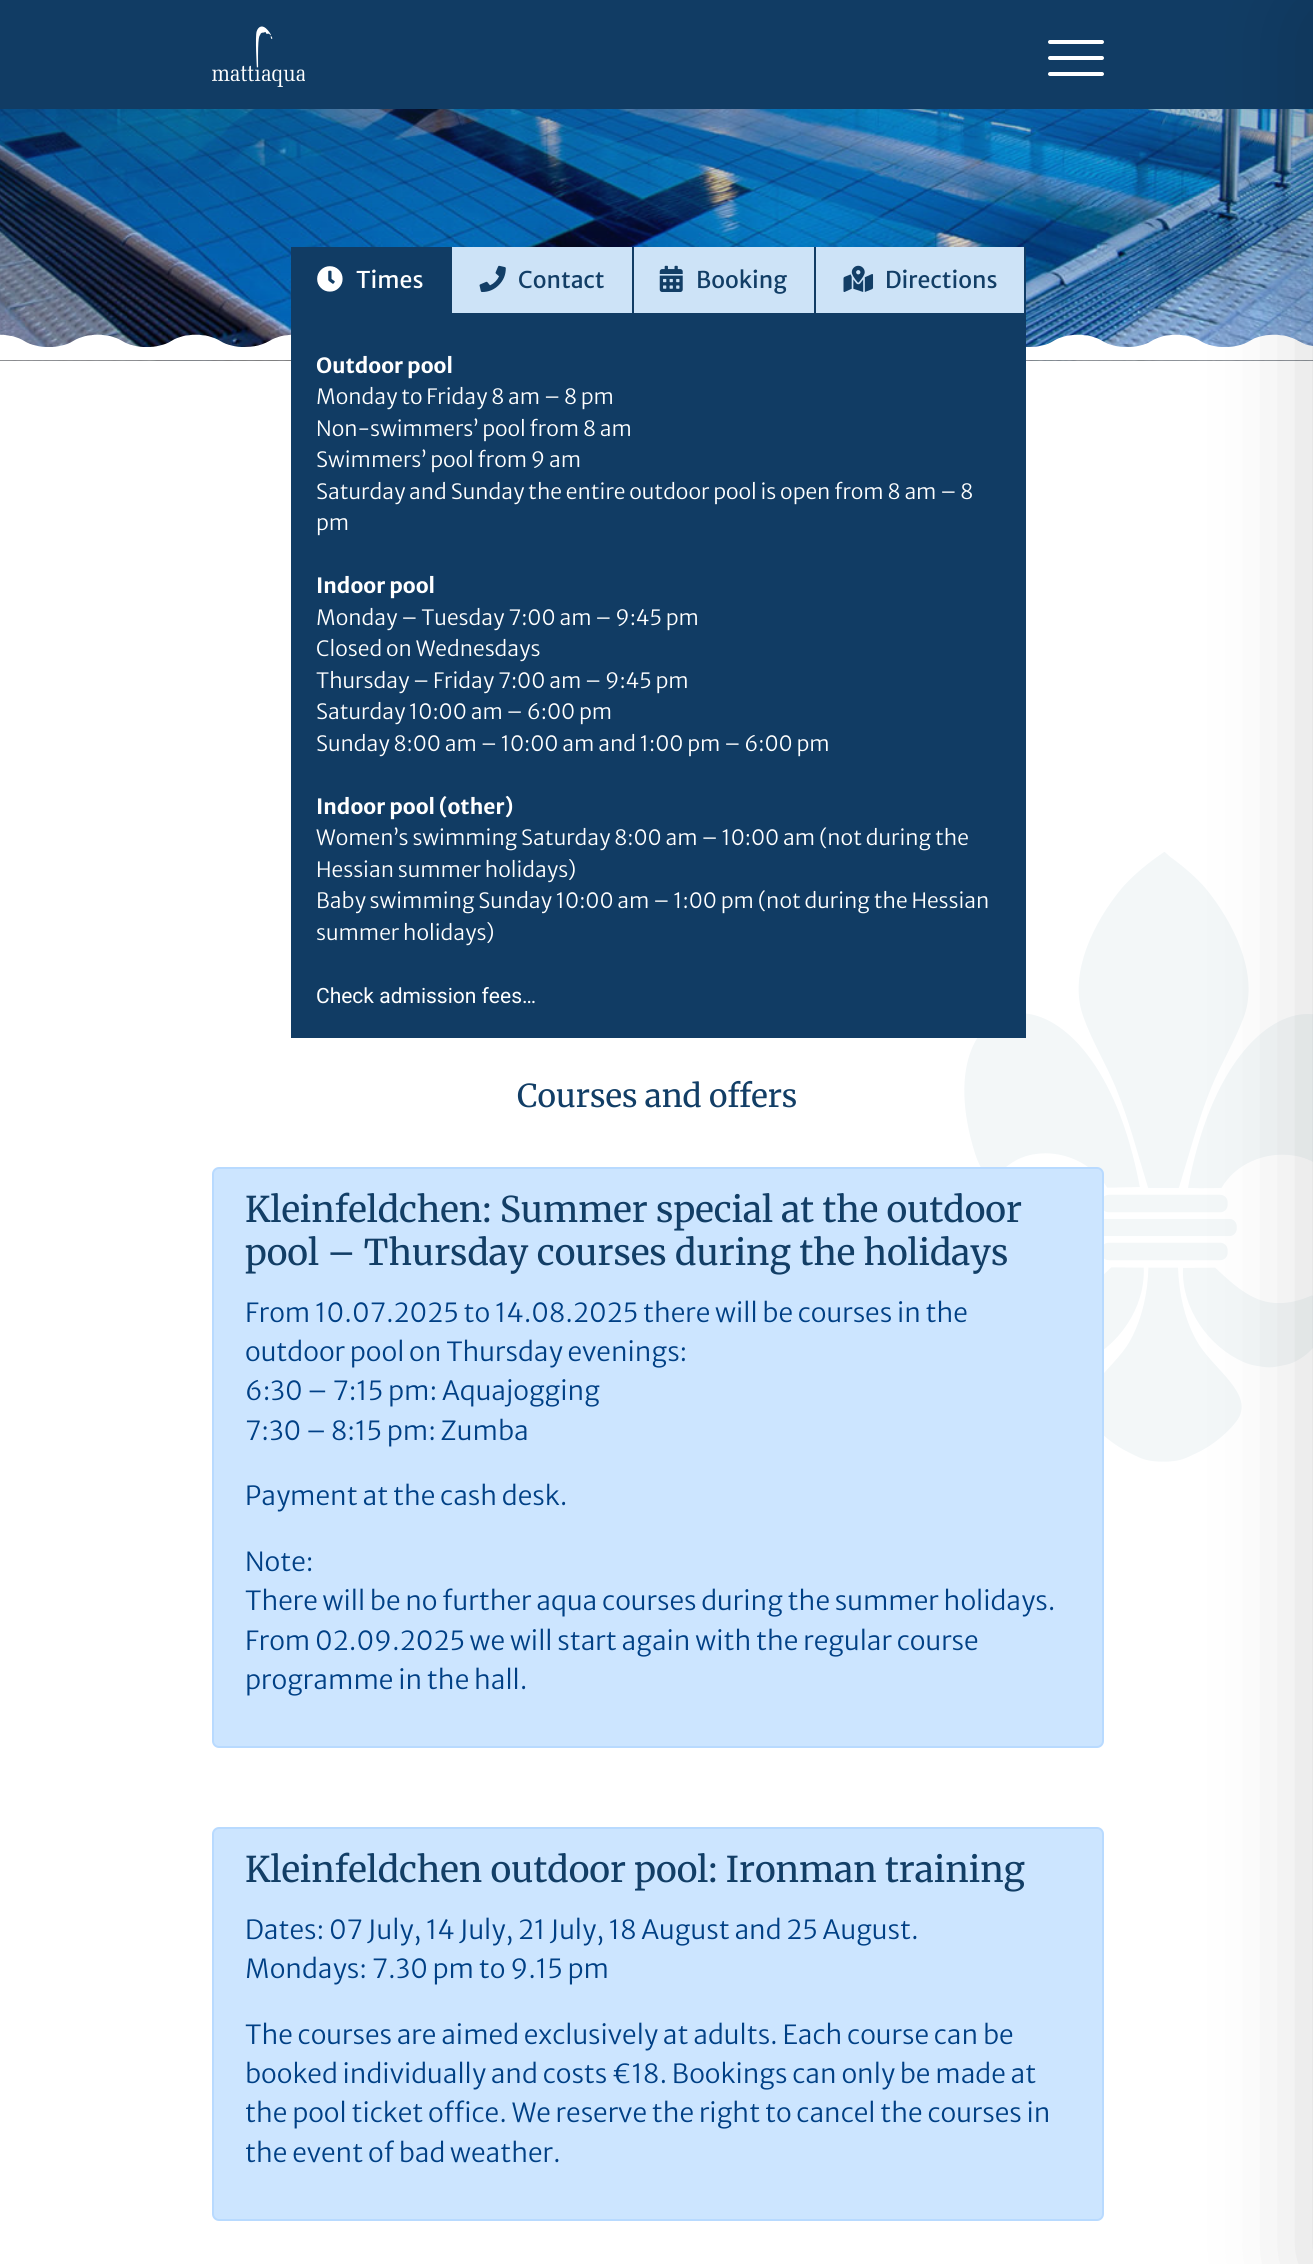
#include <cairo/cairo.h>
#include <math.h>
#include <stddef.h>


static void rounded_rect(cairo_t *cr, double x, double y, double w, double h, double r) {
  cairo_new_sub_path(cr);
  cairo_arc(cr, x + w - r, y + h - r, r, 0, M_PI / 2);
  cairo_arc(cr, x + r, y + h - r, r, M_PI / 2, M_PI);
  cairo_arc(cr, x + r, y + r, r, M_PI, 1.5 * M_PI);
  cairo_arc(cr, x + w - r, y + r, r, 1.5 * M_PI, 2 * M_PI);
  cairo_close_path(cr);
}

static void draw_shadow(cairo_t *cr, double x, double y, double w, double h, double r, double blur, double alpha) {
  cairo_push_group_with_content(cr, CAIRO_CONTENT_ALPHA);
  cairo_set_operator(cr, CAIRO_OPERATOR_SOURCE);
  for (int i = 15; i >= -15 && fmin(w, h) + blur * i / 3 > 0; i -= 2) {
    double e = blur * i / 6;
    cairo_set_source_rgba(cr, 0, 0, 0, alpha * erfc((i - 1) / 8.5) / 2);
    rounded_rect(cr, x - e, y - e, w + 2 * e, h + 2 * e, fmax(0, fmin(r + e + blur * .6, fmin(w, h) / 2 + e)));
    cairo_fill(cr);
  }
  cairo_pattern_t *soft = cairo_pop_group(cr);
  cairo_mask(cr, soft);
  cairo_pattern_destroy(soft);
}

static void draw_image(cairo_t *cr, const char *path, double x, double y, double w, double h) {
  cairo_surface_t *image = cairo_image_surface_create_from_png(path);
  cairo_save(cr);
  cairo_set_source_surface(cr, image, x, y);
  cairo_rectangle(cr, x, y, w, h);
  cairo_fill(cr);
  cairo_restore(cr);
  cairo_surface_destroy(image);
}

static void draw(cairo_t *cr) {
  cairo_pattern_t *gradient;
  cairo_set_source_rgb(cr, 1, 1, 1);
  cairo_paint(cr);
  cairo_set_source_rgb(cr, 17 / 255.0, 60 / 255.0, 100 / 255.0);
  cairo_rectangle(cr, 0, 0, 1313, 109);
  cairo_fill(cr);
  draw_image(cr, "images/1.png", 212, 26, 93, 61);
  cairo_set_source_rgb(cr, 1, 1, 1);
  rounded_rect(cr, 1048, 40, 56, 4, 2);
  cairo_fill(cr);
  rounded_rect(cr, 1048, 56, 56, 4, 2);
  cairo_fill(cr);
  rounded_rect(cr, 1048, 72, 56, 4, 2);
  cairo_fill(cr);
  cairo_set_source_rgb(cr, 0, 0, 0);
  cairo_rectangle(cr, 0, 360, 1313, 1);
  cairo_fill(cr);
  draw_image(cr, "images/2.png", 0, 109, 1313, 252);
  gradient = cairo_pattern_create_linear(657, -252, 657, 361);
  cairo_pattern_add_color_stop_rgba(gradient, 0.31, 18 / 255.0, 62 / 255.0, 102 / 255.0, 0.5);
  cairo_pattern_add_color_stop_rgba(gradient, 1, 18 / 255.0, 62 / 255.0, 102 / 255.0, 0);
  cairo_set_source(cr, gradient);
  cairo_pattern_destroy(gradient);
  cairo_rectangle(cr, 0, 109, 1313, 234);
  cairo_fill(cr);
  draw_image(cr, "images/3.png", 0, 334, 1313, 27);
  draw_image(cr, "images/8.png", 964, 852, 349, 610);
  cairo_set_source_rgb(cr, 17 / 255.0, 60 / 255.0, 100 / 255.0);
  cairo_rectangle(cr, 291, 247, 735, 791);
  cairo_fill(cr);
  draw_image(cr, "images/4.png", 317, 266, 26, 26);
  cairo_set_source_rgb(cr, 205 / 255.0, 227 / 255.0, 247 / 255.0);
  cairo_rectangle(cr, 452, 247, 180, 66);
  cairo_fill(cr);
  draw_image(cr, "images/5.png", 479, 265, 27, 27);
  cairo_rectangle(cr, 634, 247, 180, 66);
  cairo_fill(cr);
  draw_image(cr, "images/6.png", 659, 265, 24, 27);
  cairo_rectangle(cr, 816, 247, 208, 66);
  cairo_fill(cr);
  draw_image(cr, "images/7.png", 843, 265, 31, 27);
  cairo_set_source_rgb(cr, 204 / 255.0, 229 / 255.0, 1);
  rounded_rect(cr, 213, 1168, 890, 579, 6);
  cairo_fill_preserve(cr);
  cairo_set_source_rgb(cr, 184 / 255.0, 218 / 255.0, 1);
  cairo_stroke(cr);
  cairo_set_source_rgb(cr, 204 / 255.0, 229 / 255.0, 1);
  rounded_rect(cr, 213, 1828, 890, 392, 6);
  cairo_fill_preserve(cr);
  cairo_set_source_rgb(cr, 184 / 255.0, 218 / 255.0, 1);
  cairo_stroke(cr);
  cairo_set_source_rgb(cr, 0, 0, 0);
  draw_shadow(cr, 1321, 18, 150, 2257, 0, 52.5, 0.2);
  cairo_select_font_face(cr, "Merriweather Sans", CAIRO_FONT_SLANT_NORMAL, CAIRO_FONT_WEIGHT_NORMAL);
  cairo_set_font_size(cr, 23);
  cairo_set_source_rgb(cr, 1, 1, 1);
  cairo_move_to(cr, 356, 288);
  cairo_show_text(cr, "Times");
  cairo_set_source_rgb(cr, 18 / 255.0, 62 / 255.0, 102 / 255.0);
  cairo_move_to(cr, 518, 288);
  cairo_show_text(cr, "Contact");
  cairo_move_to(cr, 696, 288);
  cairo_show_text(cr, "Booking");
  cairo_move_to(cr, 885, 288);
  cairo_show_text(cr, "Directions");
  cairo_select_font_face(cr, "Merriweather Sans", CAIRO_FONT_SLANT_NORMAL, CAIRO_FONT_WEIGHT_BOLD);
  cairo_set_font_size(cr, 21);
  cairo_set_source_rgb(cr, 1, 1, 1);
  cairo_move_to(cr, 316, 373);
  cairo_show_text(cr, "Outdoor pool");
  cairo_select_font_face(cr, "Merriweather Sans Light", CAIRO_FONT_SLANT_NORMAL, CAIRO_FONT_WEIGHT_NORMAL);
  cairo_move_to(cr, 316, 404);
  cairo_show_text(cr, "Monday to Friday 8 am – 8 pm");
  cairo_move_to(cr, 316, 436);
  cairo_show_text(cr, "Non-swimmers’ pool from 8 am");
  cairo_move_to(cr, 316, 467);
  cairo_show_text(cr, "Swimmers’ pool from 9 am");
  cairo_move_to(cr, 316, 499);
  cairo_show_text(cr, "Saturday and Sunday the entire outdoor pool is open from 8 am – 8");
  cairo_move_to(cr, 316, 530);
  cairo_show_text(cr, "pm");
  cairo_select_font_face(cr, "Merriweather Sans", CAIRO_FONT_SLANT_NORMAL, CAIRO_FONT_WEIGHT_BOLD);
  cairo_move_to(cr, 316, 593);
  cairo_show_text(cr, "Indoor pool");
  cairo_select_font_face(cr, "Merriweather Sans Light", CAIRO_FONT_SLANT_NORMAL, CAIRO_FONT_WEIGHT_NORMAL);
  cairo_move_to(cr, 316, 625);
  cairo_show_text(cr, "Monday – Tuesday 7:00 am – 9:45 pm");
  cairo_move_to(cr, 316, 656);
  cairo_show_text(cr, "Closed on Wednesdays");
  cairo_move_to(cr, 316, 688);
  cairo_show_text(cr, "Thursday – Friday 7:00 am – 9:45 pm");
  cairo_move_to(cr, 316, 719);
  cairo_show_text(cr, "Saturday 10:00 am – 6:00 pm");
  cairo_move_to(cr, 316, 751);
  cairo_show_text(cr, "Sunday 8:00 am – 10:00 am and 1:00 pm – 6:00 pm");
  cairo_select_font_face(cr, "Merriweather Sans", CAIRO_FONT_SLANT_NORMAL, CAIRO_FONT_WEIGHT_BOLD);
  cairo_move_to(cr, 316, 814);
  cairo_show_text(cr, "Indoor pool (other)");
  cairo_select_font_face(cr, "Merriweather Sans Light", CAIRO_FONT_SLANT_NORMAL, CAIRO_FONT_WEIGHT_NORMAL);
  cairo_move_to(cr, 316, 845);
  cairo_show_text(cr, "Women’s swimming Saturday 8:00 am – 10:00 am (not during the");
  cairo_move_to(cr, 316, 877);
  cairo_show_text(cr, "Hessian summer holidays)");
  cairo_move_to(cr, 316, 908);
  cairo_show_text(cr, "Baby swimming Sunday 10:00 am – 1:00 pm (not during the Hessian");
  cairo_move_to(cr, 316, 940);
  cairo_show_text(cr, "summer holidays)");
  cairo_select_font_face(cr, "Roboto", CAIRO_FONT_SLANT_NORMAL, CAIRO_FONT_WEIGHT_NORMAL);
  cairo_move_to(cr, 316, 1003);
  cairo_show_text(cr, "Check admission fees…");
  cairo_select_font_face(cr, "Merriweather Light", CAIRO_FONT_SLANT_NORMAL, CAIRO_FONT_WEIGHT_NORMAL);
  cairo_set_font_size(cr, 31.5);
  cairo_set_source_rgb(cr, 18 / 255.0, 62 / 255.0, 102 / 255.0);
  cairo_move_to(cr, 517, 1107);
  cairo_show_text(cr, "Courses and offers");
  cairo_set_font_size(cr, 35.4);
  cairo_move_to(cr, 245, 1222);
  cairo_show_text(cr, "Kleinfeldchen: Summer special at the outdoor");
  cairo_move_to(cr, 245, 1265);
  cairo_show_text(cr, "pool – Thursday courses during the holidays");
  cairo_select_font_face(cr, "Merriweather Sans Light", CAIRO_FONT_SLANT_NORMAL, CAIRO_FONT_WEIGHT_NORMAL);
  cairo_set_font_size(cr, 26.25);
  cairo_set_source_rgb(cr, 0, 64 / 255.0, 133 / 255.0);
  cairo_move_to(cr, 245, 1322);
  cairo_show_text(cr, "From 10.07.2025 to 14.08.2025 there will be courses in the");
  cairo_move_to(cr, 245, 1361);
  cairo_show_text(cr, "outdoor pool on Thursday evenings:");
  cairo_move_to(cr, 245, 1400);
  cairo_show_text(cr, "6:30 – 7:15 pm: Aquajogging");
  cairo_move_to(cr, 245, 1440);
  cairo_show_text(cr, "7:30 – 8:15 pm: Zumba");
  cairo_move_to(cr, 245, 1505);
  cairo_show_text(cr, "Payment at the cash desk.");
  cairo_move_to(cr, 245, 1571);
  cairo_show_text(cr, "Note:");
  cairo_move_to(cr, 245, 1610);
  cairo_show_text(cr, "There will be no further aqua courses during the summer holidays.");
  cairo_move_to(cr, 245, 1650);
  cairo_show_text(cr, "From 02.09.2025 we will start again with the regular course");
  cairo_move_to(cr, 245, 1689);
  cairo_show_text(cr, "programme in the hall.");
  cairo_select_font_face(cr, "Merriweather Light", CAIRO_FONT_SLANT_NORMAL, CAIRO_FONT_WEIGHT_NORMAL);
  cairo_set_font_size(cr, 35.4);
  cairo_set_source_rgb(cr, 18 / 255.0, 62 / 255.0, 102 / 255.0);
  cairo_move_to(cr, 245, 1882);
  cairo_show_text(cr, "Kleinfeldchen outdoor pool: Ironman training");
  cairo_select_font_face(cr, "Merriweather Sans Light", CAIRO_FONT_SLANT_NORMAL, CAIRO_FONT_WEIGHT_NORMAL);
  cairo_set_font_size(cr, 26.25);
  cairo_set_source_rgb(cr, 0, 64 / 255.0, 133 / 255.0);
  cairo_move_to(cr, 245, 1939);
  cairo_show_text(cr, "Dates: 07 July, 14 July, 21 July, 18 August and 25 August.");
  cairo_move_to(cr, 245, 1978);
  cairo_show_text(cr, "Mondays: 7.30 pm to 9.15 pm");
  cairo_move_to(cr, 245, 2044);
  cairo_show_text(cr, "The courses are aimed exclusively at adults. Each course can be");
  cairo_move_to(cr, 245, 2083);
  cairo_show_text(cr, "booked individually and costs €18. Bookings can only be made at");
  cairo_move_to(cr, 245, 2122);
  cairo_show_text(cr, "the pool ticket office. We reserve the right to cancel the courses in");
  cairo_move_to(cr, 245, 2162);
  cairo_show_text(cr, "the event of bad weather.");
}

int main(void) {
  cairo_surface_t *surface = cairo_image_surface_create(CAIRO_FORMAT_RGB24, 1313, 2264);
  cairo_t *cr = cairo_create(surface);
  cairo_font_options_t *options = cairo_font_options_create();
  cairo_font_options_set_hint_metrics(options, CAIRO_HINT_METRICS_OFF);
  cairo_font_options_set_hint_style(options, CAIRO_HINT_STYLE_NONE);
  cairo_set_font_options(cr, options);
  cairo_set_miter_limit(cr, 4);
  draw(cr);
  cairo_surface_write_to_png(surface, "out.png");
  cairo_font_options_destroy(options);
  cairo_destroy(cr);
  cairo_surface_destroy(surface);
  return 0;
}
